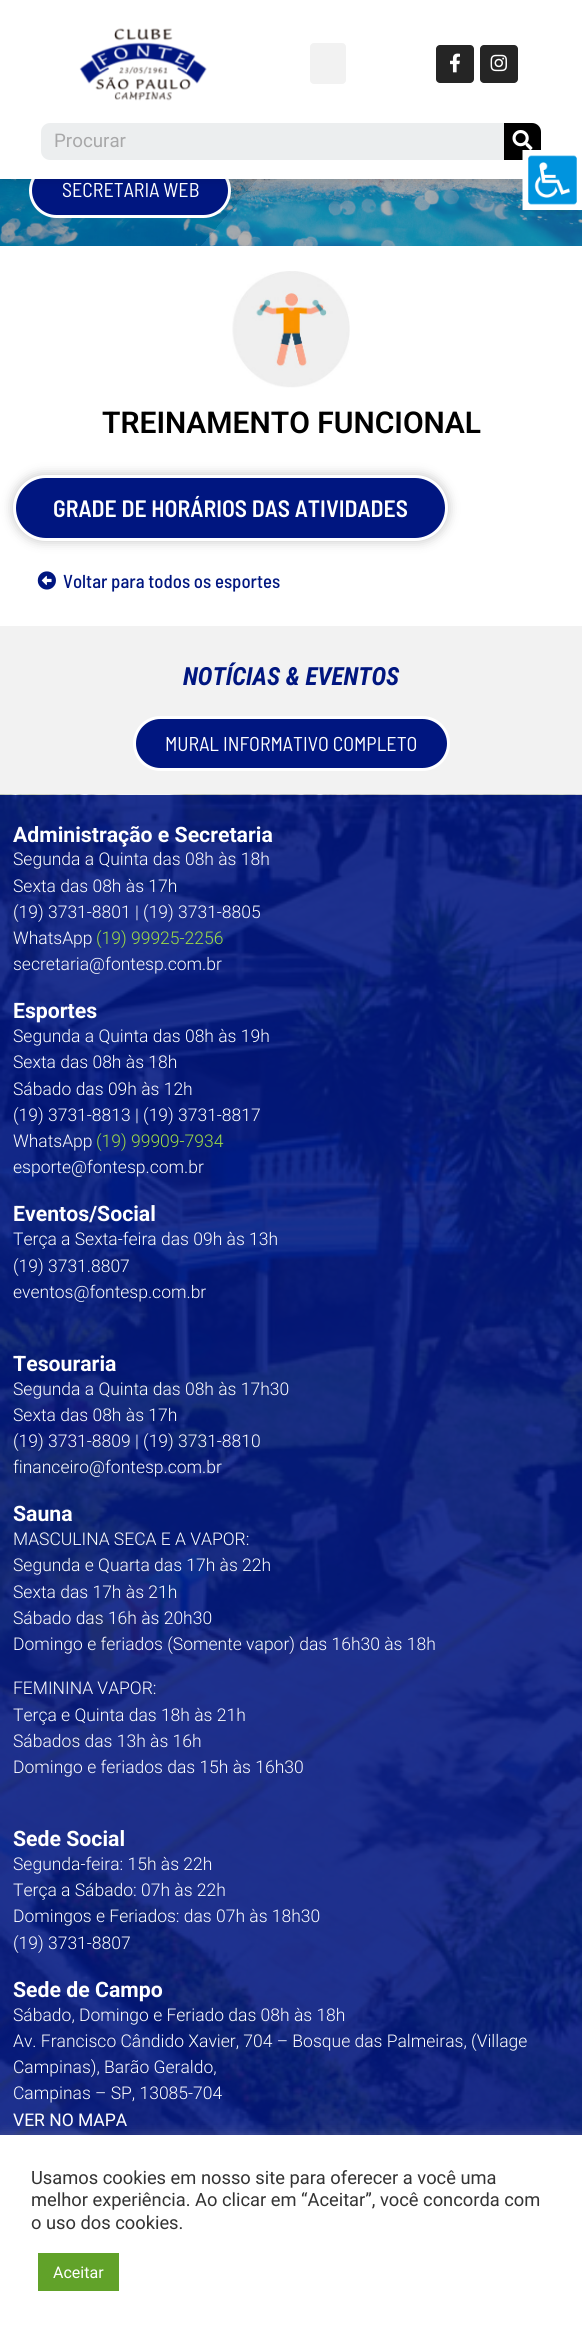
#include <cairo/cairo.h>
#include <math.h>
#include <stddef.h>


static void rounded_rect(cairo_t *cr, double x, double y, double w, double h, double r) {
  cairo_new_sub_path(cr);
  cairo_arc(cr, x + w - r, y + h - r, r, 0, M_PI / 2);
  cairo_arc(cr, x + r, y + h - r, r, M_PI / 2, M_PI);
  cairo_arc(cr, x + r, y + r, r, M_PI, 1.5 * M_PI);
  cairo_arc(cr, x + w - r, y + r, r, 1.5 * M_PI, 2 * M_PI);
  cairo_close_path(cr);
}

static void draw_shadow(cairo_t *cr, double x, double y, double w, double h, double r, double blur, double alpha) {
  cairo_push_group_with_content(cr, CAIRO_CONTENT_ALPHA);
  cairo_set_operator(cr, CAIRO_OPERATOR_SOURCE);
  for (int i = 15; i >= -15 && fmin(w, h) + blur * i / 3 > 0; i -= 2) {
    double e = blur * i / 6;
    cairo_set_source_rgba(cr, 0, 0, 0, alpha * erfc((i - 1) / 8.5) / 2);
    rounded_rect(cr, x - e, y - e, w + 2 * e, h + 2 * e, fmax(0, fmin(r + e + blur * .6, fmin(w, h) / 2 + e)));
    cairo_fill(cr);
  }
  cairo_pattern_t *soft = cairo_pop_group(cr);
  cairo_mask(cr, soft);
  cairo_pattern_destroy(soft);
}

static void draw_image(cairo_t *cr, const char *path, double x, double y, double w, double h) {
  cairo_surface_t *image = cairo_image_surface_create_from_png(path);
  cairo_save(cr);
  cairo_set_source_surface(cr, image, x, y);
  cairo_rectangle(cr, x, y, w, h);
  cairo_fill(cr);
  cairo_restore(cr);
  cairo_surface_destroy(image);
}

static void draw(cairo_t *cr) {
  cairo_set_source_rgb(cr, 1, 1, 1);
  cairo_paint(cr);
  draw_image(cr, "images/5.png", 0, 179, 582, 67);
  cairo_set_source_rgb(cr, 0, 22 / 255.0, 128 / 255.0);
  rounded_rect(cr, 30.5, 164.5, 199, 52, 26);
  cairo_fill_preserve(cr);
  cairo_set_source_rgb(cr, 1, 1, 1);
  cairo_set_line_width(cr, 3);
  cairo_stroke(cr);
  cairo_set_source_rgb(cr, 0, 0, 0);
  draw_shadow(cr, 0, 0, 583, 179, 0, 6, 0.13);
  cairo_set_source_rgb(cr, 1, 1, 1);
  cairo_rectangle(cr, 0, 0, 582, 179);
  cairo_fill(cr);
  draw_image(cr, "images/1.png", 79, 28, 128, 73);
  cairo_set_source_rgb(cr, 242 / 255.0, 242 / 255.0, 242 / 255.0);
  rounded_rect(cr, 310, 43, 36, 41, 4);
  cairo_fill(cr);
  cairo_set_source_rgb(cr, 37 / 255.0, 37 / 255.0, 37 / 255.0);
  rounded_rect(cr, 436, 45, 38, 38, 4);
  cairo_fill(cr);
  draw_image(cr, "images/2.png", 450, 53, 10, 20);
  rounded_rect(cr, 480, 45, 38, 38, 4);
  cairo_fill(cr);
  draw_image(cr, "images/3.png", 490, 54, 17, 18);
  cairo_set_source_rgb(cr, 236 / 255.0, 238 / 255.0, 239 / 255.0);
  rounded_rect(cr, 41, 123, 500, 37, 9);
  cairo_fill(cr);
  cairo_set_source_rgb(cr, 0, 0, 0);
  cairo_new_path(cr);
  cairo_move_to(cr, 504, 123);
  cairo_line_to(cr, 532, 123);
  cairo_curve_to(cr, 537, 123, 541, 127, 541, 132);
  cairo_line_to(cr, 541, 151);
  cairo_curve_to(cr, 541, 156, 537, 160, 532, 160);
  cairo_line_to(cr, 504, 160);
  cairo_close_path(cr);
  cairo_fill(cr);
  draw_image(cr, "images/4.png", 512, 130, 21, 20);
  draw_image(cr, "images/6.png", 232, 271, 118, 117);
  cairo_set_source_rgb(cr, 0, 0, 0);
  draw_shadow(cr, 13, 475, 435, 66, 33, 6, 0.24);
  cairo_set_source_rgb(cr, 0, 22 / 255.0, 128 / 255.0);
  rounded_rect(cr, 14.5, 476.5, 432, 63, 31.5);
  cairo_fill_preserve(cr);
  cairo_set_source_rgb(cr, 1, 1, 1);
  cairo_stroke(cr);
  draw_image(cr, "images/7.png", 37, 571, 19, 19);
  cairo_set_source_rgb(cr, 242 / 255.0, 242 / 255.0, 242 / 255.0);
  cairo_rectangle(cr, 0, 626, 582, 169);
  cairo_fill(cr);
  cairo_set_source_rgb(cr, 0, 22 / 255.0, 128 / 255.0);
  rounded_rect(cr, 134.5, 717.5, 314, 52, 26);
  cairo_fill_preserve(cr);
  cairo_set_source_rgb(cr, 1, 1, 1);
  cairo_stroke(cr);
  draw_image(cr, "images/8.png", 522, 150, 55, 60);
  cairo_rectangle(cr, 577, 179, 5, 31);
  cairo_fill(cr);
  draw_image(cr, "images/9.png", 0, 794, 582, 1341);
  cairo_set_source_rgb(cr, 172 / 255.0, 171 / 255.0, 171 / 255.0);
  draw_shadow(cr, 0, 2134, 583, 194, 0, 6, 0.3);
  cairo_set_source_rgb(cr, 1, 1, 1);
  cairo_rectangle(cr, 0, 2135, 582, 193);
  cairo_fill(cr);
  cairo_set_source_rgb(cr, 97 / 255.0, 162 / 255.0, 41 / 255.0);
  cairo_rectangle(cr, 38, 2253, 81, 38);
  cairo_fill(cr);
  cairo_select_font_face(cr, "Roboto", CAIRO_FONT_SLANT_NORMAL, CAIRO_FONT_WEIGHT_NORMAL);
  cairo_set_font_size(cr, 18.75);
  cairo_set_source_rgb(cr, 168 / 255.0, 168 / 255.0, 169 / 255.0);
  cairo_move_to(cr, 54, 147);
  cairo_show_text(cr, "Procurar");
  cairo_select_font_face(cr, "Barlow Semi Condensed", CAIRO_FONT_SLANT_NORMAL, CAIRO_FONT_WEIGHT_NORMAL);
  cairo_set_font_size(cr, 20);
  cairo_set_source_rgb(cr, 1, 1, 1);
  cairo_move_to(cr, 62, 197);
  cairo_show_text(cr, "SECRETARIA WEB");
  cairo_select_font_face(cr, "Roboto SemiBold", CAIRO_FONT_SLANT_NORMAL, CAIRO_FONT_WEIGHT_NORMAL);
  cairo_set_font_size(cr, 30);
  cairo_set_source_rgb(cr, 0, 0, 0);
  cairo_move_to(cr, 102, 433);
  cairo_show_text(cr, "TREINAMENTO FUNCIONAL");
  cairo_select_font_face(cr, "Barlow Semi Condensed SemiBold", CAIRO_FONT_SLANT_NORMAL, CAIRO_FONT_WEIGHT_NORMAL);
  cairo_set_font_size(cr, 23.75);
  cairo_set_source_rgb(cr, 1, 1, 1);
  cairo_move_to(cr, 53, 517);
  cairo_show_text(cr, "GRADE DE HORÁRIOS DAS ATIVIDADES");
  cairo_select_font_face(cr, "Barlow Semi Condensed Medium", CAIRO_FONT_SLANT_NORMAL, CAIRO_FONT_WEIGHT_NORMAL);
  cairo_set_font_size(cr, 18.75);
  cairo_set_source_rgb(cr, 0, 22 / 255.0, 128 / 255.0);
  cairo_move_to(cr, 63, 588);
  cairo_show_text(cr, "Voltar para todos os esportes");
  cairo_select_font_face(cr, "Roboto Condensed", CAIRO_FONT_SLANT_ITALIC, CAIRO_FONT_WEIGHT_BOLD);
  cairo_set_font_size(cr, 25);
  cairo_move_to(cr, 183, 685);
  cairo_show_text(cr, "NOTÍCIAS & EVENTOS");
  cairo_select_font_face(cr, "Barlow Semi Condensed", CAIRO_FONT_SLANT_NORMAL, CAIRO_FONT_WEIGHT_NORMAL);
  cairo_set_font_size(cr, 20);
  cairo_set_source_rgb(cr, 1, 1, 1);
  cairo_move_to(cr, 165, 751);
  cairo_show_text(cr, "MURAL INFORMATIVO COMPLETO");
  cairo_select_font_face(cr, "Roboto", CAIRO_FONT_SLANT_NORMAL, CAIRO_FONT_WEIGHT_BOLD);
  cairo_set_font_size(cr, 21.25);
  cairo_move_to(cr, 13, 842);
  cairo_show_text(cr, "Administração e Secretaria");
  cairo_select_font_face(cr, "Roboto Light", CAIRO_FONT_SLANT_NORMAL, CAIRO_FONT_WEIGHT_NORMAL);
  cairo_set_font_size(cr, 17.5);
  cairo_move_to(cr, 13, 865);
  cairo_show_text(cr, "Segunda a Quinta das 08h às 18h");
  cairo_move_to(cr, 13, 892);
  cairo_show_text(cr, "Sexta das 08h às 17h");
  cairo_move_to(cr, 13, 918);
  cairo_show_text(cr, "(19) 3731-8801 | (19) 3731-8805");
  cairo_move_to(cr, 13, 944);
  cairo_show_text(cr, "WhatsApp");
  cairo_set_source_rgb(cr, 158 / 255.0, 221 / 255.0, 70 / 255.0);
  cairo_move_to(cr, 96, 944);
  cairo_show_text(cr, "(19) 99925-2256");
  cairo_set_source_rgb(cr, 1, 1, 1);
  cairo_move_to(cr, 13, 970);
  cairo_show_text(cr, "secretaria@fontesp.com.br");
  cairo_select_font_face(cr, "Roboto", CAIRO_FONT_SLANT_NORMAL, CAIRO_FONT_WEIGHT_BOLD);
  cairo_set_font_size(cr, 21.25);
  cairo_move_to(cr, 13, 1018);
  cairo_show_text(cr, "Esportes");
  cairo_select_font_face(cr, "Roboto Light", CAIRO_FONT_SLANT_NORMAL, CAIRO_FONT_WEIGHT_NORMAL);
  cairo_set_font_size(cr, 17.5);
  cairo_move_to(cr, 13, 1042);
  cairo_show_text(cr, "Segunda a Quinta das 08h às 19h");
  cairo_move_to(cr, 13, 1068);
  cairo_show_text(cr, "Sexta das 08h às 18h");
  cairo_move_to(cr, 13, 1095);
  cairo_show_text(cr, "Sábado das 09h às 12h");
  cairo_move_to(cr, 13, 1121);
  cairo_show_text(cr, "(19) 3731-8813 | (19) 3731-8817");
  cairo_move_to(cr, 13, 1147);
  cairo_show_text(cr, "WhatsApp");
  cairo_set_source_rgb(cr, 158 / 255.0, 221 / 255.0, 70 / 255.0);
  cairo_move_to(cr, 96, 1147);
  cairo_show_text(cr, "(19) 99909-7934");
  cairo_set_source_rgb(cr, 1, 1, 1);
  cairo_move_to(cr, 13, 1173);
  cairo_show_text(cr, "esporte@fontesp.com.br");
  cairo_select_font_face(cr, "Roboto", CAIRO_FONT_SLANT_NORMAL, CAIRO_FONT_WEIGHT_BOLD);
  cairo_set_font_size(cr, 21.25);
  cairo_move_to(cr, 13, 1221);
  cairo_show_text(cr, "Eventos/Social");
  cairo_select_font_face(cr, "Roboto Light", CAIRO_FONT_SLANT_NORMAL, CAIRO_FONT_WEIGHT_NORMAL);
  cairo_set_font_size(cr, 17.5);
  cairo_move_to(cr, 13, 1245);
  cairo_show_text(cr, "Terça a Sexta-feira das 09h às 13h");
  cairo_move_to(cr, 13, 1272);
  cairo_show_text(cr, "(19) 3731.8807");
  cairo_move_to(cr, 13, 1298);
  cairo_show_text(cr, "eventos@fontesp.com.br");
  cairo_select_font_face(cr, "Roboto", CAIRO_FONT_SLANT_NORMAL, CAIRO_FONT_WEIGHT_BOLD);
  cairo_set_font_size(cr, 21.25);
  cairo_move_to(cr, 13, 1371);
  cairo_show_text(cr, "Tesouraria");
  cairo_select_font_face(cr, "Roboto Light", CAIRO_FONT_SLANT_NORMAL, CAIRO_FONT_WEIGHT_NORMAL);
  cairo_set_font_size(cr, 17.5);
  cairo_move_to(cr, 13, 1395);
  cairo_show_text(cr, "Segunda a Quinta das 08h às 17h30");
  cairo_move_to(cr, 13, 1421);
  cairo_show_text(cr, "Sexta das 08h às 17h");
  cairo_move_to(cr, 13, 1447);
  cairo_show_text(cr, "(19) 3731-8809 | (19) 3731-8810");
  cairo_move_to(cr, 13, 1473);
  cairo_show_text(cr, "financeiro@fontesp.com.br");
  cairo_select_font_face(cr, "Roboto", CAIRO_FONT_SLANT_NORMAL, CAIRO_FONT_WEIGHT_BOLD);
  cairo_set_font_size(cr, 21.25);
  cairo_move_to(cr, 13, 1521);
  cairo_show_text(cr, "Sauna");
  cairo_select_font_face(cr, "Roboto Light", CAIRO_FONT_SLANT_NORMAL, CAIRO_FONT_WEIGHT_NORMAL);
  cairo_set_font_size(cr, 17.5);
  cairo_move_to(cr, 13, 1545);
  cairo_show_text(cr, "MASCULINA SECA E A VAPOR:");
  cairo_move_to(cr, 13, 1571);
  cairo_show_text(cr, "Segunda e Quarta das 17h às 22h");
  cairo_move_to(cr, 13, 1598);
  cairo_show_text(cr, "Sexta das 17h às 21h");
  cairo_move_to(cr, 13, 1624);
  cairo_show_text(cr, "Sábado das 16h às 20h30");
  cairo_move_to(cr, 13, 1650);
  cairo_show_text(cr, "Domingo e feriados (Somente vapor) das 16h30 às 18h");
  cairo_move_to(cr, 13, 1694);
  cairo_show_text(cr, "FEMININA VAPOR:");
  cairo_move_to(cr, 13, 1721);
  cairo_show_text(cr, "Terça e Quinta das 18h às 21h");
  cairo_move_to(cr, 13, 1747);
  cairo_show_text(cr, "Sábados das 13h às 16h");
  cairo_move_to(cr, 13, 1773);
  cairo_show_text(cr, "Domingo e feriados das 15h às 16h30");
  cairo_select_font_face(cr, "Roboto", CAIRO_FONT_SLANT_NORMAL, CAIRO_FONT_WEIGHT_BOLD);
  cairo_set_font_size(cr, 21.25);
  cairo_move_to(cr, 13, 1846);
  cairo_show_text(cr, "Sede Social");
  cairo_select_font_face(cr, "Roboto Light", CAIRO_FONT_SLANT_NORMAL, CAIRO_FONT_WEIGHT_NORMAL);
  cairo_set_font_size(cr, 17.5);
  cairo_move_to(cr, 13, 1870);
  cairo_show_text(cr, "Segunda-feira: 15h às 22h");
  cairo_move_to(cr, 13, 1896);
  cairo_show_text(cr, "Terça a Sábado: 07h às 22h");
  cairo_move_to(cr, 13, 1922);
  cairo_show_text(cr, "Domingos e Feriados: das 07h às 18h30");
  cairo_move_to(cr, 13, 1949);
  cairo_show_text(cr, "(19) 3731-8807");
  cairo_select_font_face(cr, "Roboto", CAIRO_FONT_SLANT_NORMAL, CAIRO_FONT_WEIGHT_BOLD);
  cairo_set_font_size(cr, 21.25);
  cairo_move_to(cr, 13, 1997);
  cairo_show_text(cr, "Sede de Campo");
  cairo_select_font_face(cr, "Roboto Light", CAIRO_FONT_SLANT_NORMAL, CAIRO_FONT_WEIGHT_NORMAL);
  cairo_set_font_size(cr, 17.5);
  cairo_move_to(cr, 13, 2021);
  cairo_show_text(cr, "Sábado, Domingo e Feriado das 08h às 18h");
  cairo_move_to(cr, 13, 2047);
  cairo_show_text(cr, "Av. Francisco Cândido Xavier, 704 – Bosque das Palmeiras, (Village");
  cairo_move_to(cr, 13, 2073);
  cairo_show_text(cr, "Campinas), Barão Geraldo,");
  cairo_move_to(cr, 13, 2099);
  cairo_show_text(cr, "Campinas – SP, 13085-704");
  cairo_select_font_face(cr, "Roboto", CAIRO_FONT_SLANT_NORMAL, CAIRO_FONT_WEIGHT_NORMAL);
  cairo_move_to(cr, 13, 2126);
  cairo_show_text(cr, "VER NO MAPA");
  cairo_set_font_size(cr, 18.3);
  cairo_set_source_rgb(cr, 51 / 255.0, 51 / 255.0, 51 / 255.0);
  cairo_move_to(cr, 31, 2184);
  cairo_show_text(cr, "Usamos cookies em nosso site para oferecer a você uma");
  cairo_move_to(cr, 31, 2206);
  cairo_show_text(cr, "melhor experiência. Ao clicar em “Aceitar”, você concorda com");
  cairo_move_to(cr, 31, 2229);
  cairo_show_text(cr, "o uso dos cookies.");
  cairo_set_font_size(cr, 16);
  cairo_set_source_rgb(cr, 1, 1, 1);
  cairo_move_to(cr, 53, 2278);
  cairo_show_text(cr, "Aceitar");
}

int main(void) {
  cairo_surface_t *surface = cairo_image_surface_create(CAIRO_FORMAT_RGB24, 582, 2328);
  cairo_t *cr = cairo_create(surface);
  cairo_font_options_t *options = cairo_font_options_create();
  cairo_font_options_set_hint_metrics(options, CAIRO_HINT_METRICS_OFF);
  cairo_font_options_set_hint_style(options, CAIRO_HINT_STYLE_NONE);
  cairo_set_font_options(cr, options);
  cairo_set_miter_limit(cr, 4);
  draw(cr);
  cairo_surface_write_to_png(surface, "out.png");
  cairo_font_options_destroy(options);
  cairo_destroy(cr);
  cairo_surface_destroy(surface);
  return 0;
}
